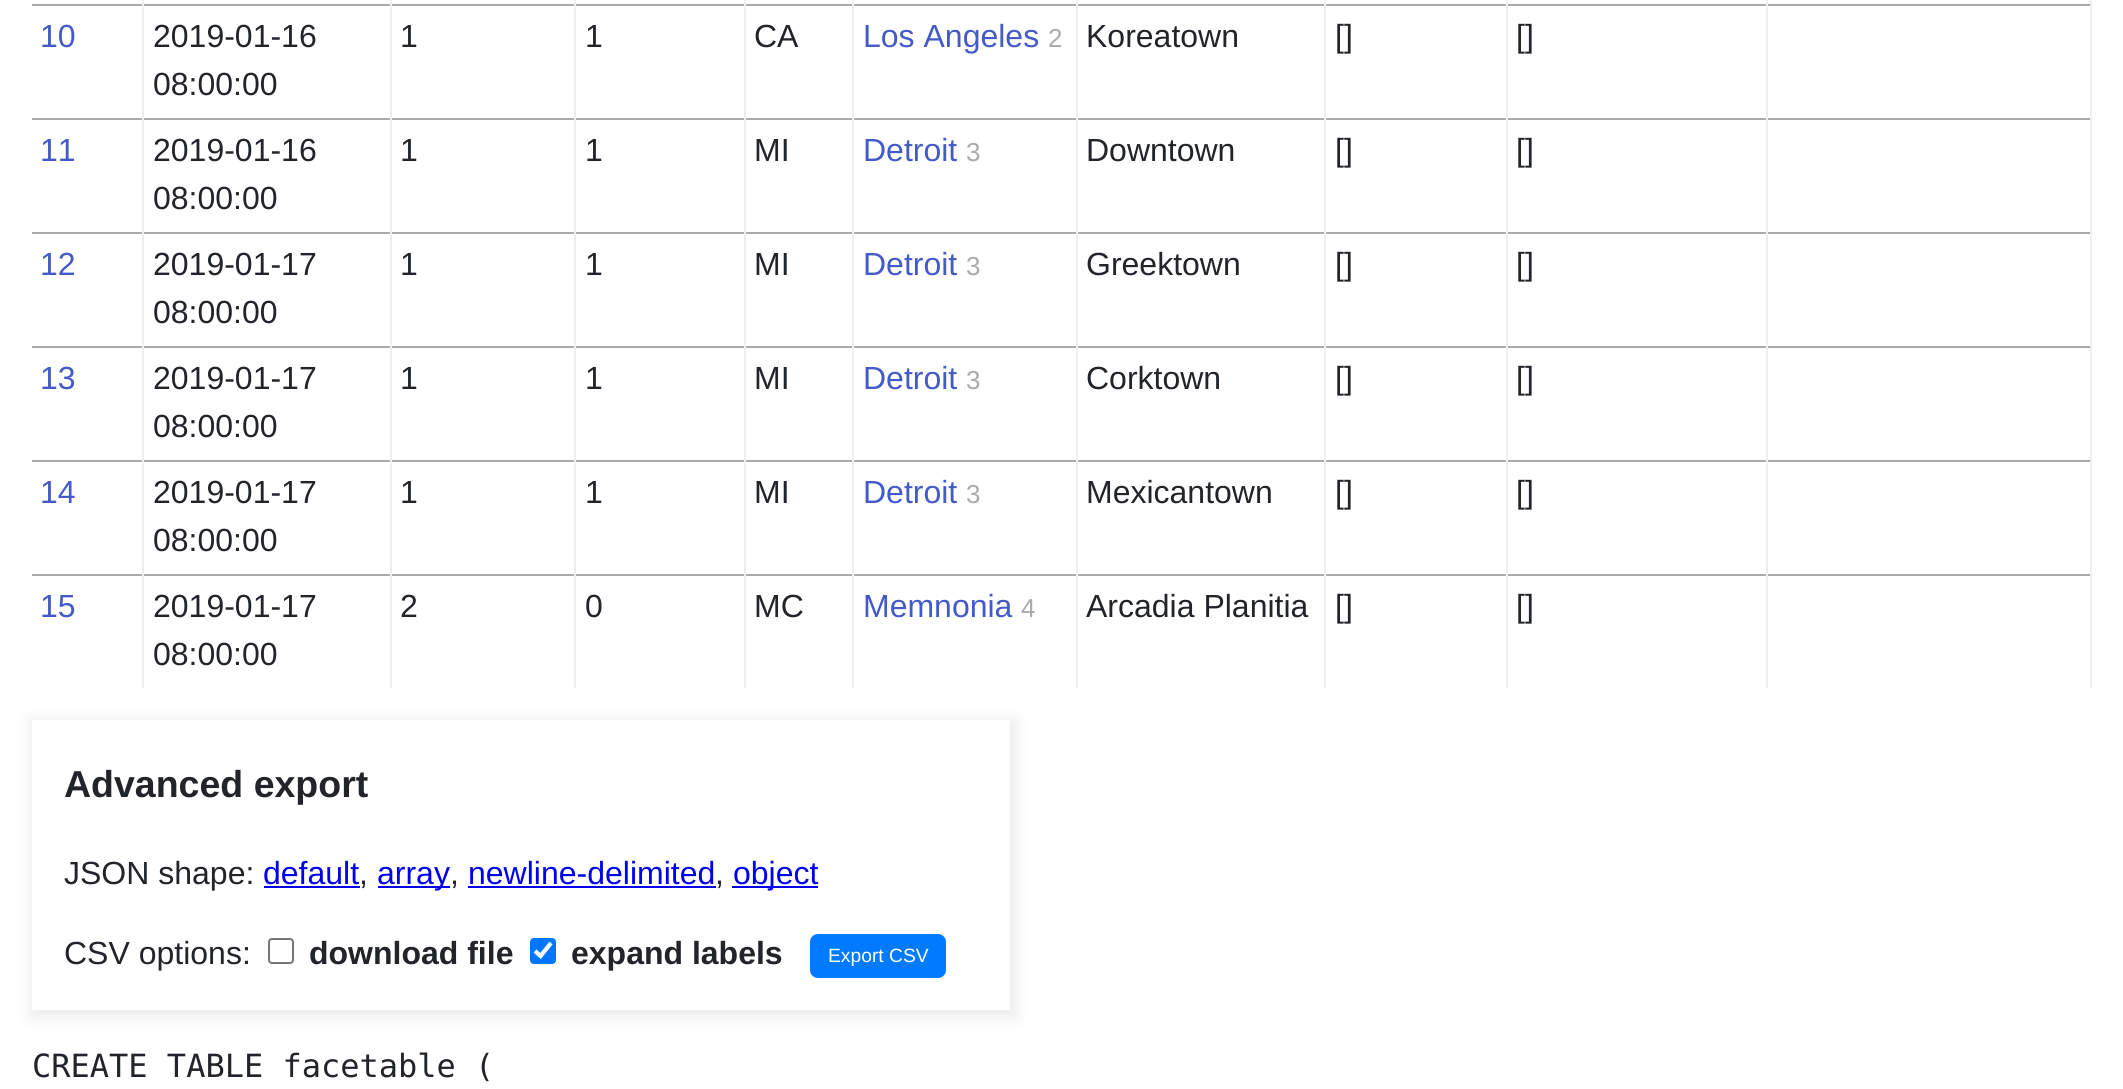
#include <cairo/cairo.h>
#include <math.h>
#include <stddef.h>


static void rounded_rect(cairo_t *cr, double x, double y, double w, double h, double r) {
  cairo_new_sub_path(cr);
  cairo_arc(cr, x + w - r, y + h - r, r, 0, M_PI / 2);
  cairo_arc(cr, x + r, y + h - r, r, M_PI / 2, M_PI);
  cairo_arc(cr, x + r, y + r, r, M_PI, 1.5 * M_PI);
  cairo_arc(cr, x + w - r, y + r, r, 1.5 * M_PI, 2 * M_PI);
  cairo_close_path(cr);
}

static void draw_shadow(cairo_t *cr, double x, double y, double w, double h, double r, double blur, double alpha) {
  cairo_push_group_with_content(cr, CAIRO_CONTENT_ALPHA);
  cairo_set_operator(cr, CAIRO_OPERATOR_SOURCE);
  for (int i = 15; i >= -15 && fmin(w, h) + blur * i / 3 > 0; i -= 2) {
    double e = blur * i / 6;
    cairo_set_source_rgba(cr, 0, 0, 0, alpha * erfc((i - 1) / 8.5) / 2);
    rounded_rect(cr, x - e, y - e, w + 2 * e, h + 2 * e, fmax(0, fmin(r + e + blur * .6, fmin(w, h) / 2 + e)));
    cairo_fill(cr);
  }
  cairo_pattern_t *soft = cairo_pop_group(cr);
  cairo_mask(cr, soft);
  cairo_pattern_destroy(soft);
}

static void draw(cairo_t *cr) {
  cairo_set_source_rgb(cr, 1, 1, 1);
  cairo_paint(cr);
  cairo_set_source_rgb(cr, 170 / 255.0, 170 / 255.0, 170 / 255.0);
  cairo_rectangle(cr, 32, 4, 2060, 2);
  cairo_fill(cr);
  cairo_rectangle(cr, 32, 118, 2060, 2);
  cairo_fill(cr);
  cairo_rectangle(cr, 32, 232, 2060, 2);
  cairo_fill(cr);
  cairo_rectangle(cr, 32, 346, 2060, 2);
  cairo_fill(cr);
  cairo_rectangle(cr, 32, 460, 2060, 2);
  cairo_fill(cr);
  cairo_rectangle(cr, 32, 574, 2060, 2);
  cairo_fill(cr);
  cairo_set_source_rgb(cr, 238 / 255.0, 238 / 255.0, 238 / 255.0);
  cairo_rectangle(cr, 2090, 574, 2, 114);
  cairo_fill(cr);
  cairo_rectangle(cr, 2090, 460, 2, 116);
  cairo_fill(cr);
  cairo_rectangle(cr, 2090, 346, 2, 116);
  cairo_fill(cr);
  cairo_rectangle(cr, 2090, 232, 2, 116);
  cairo_fill(cr);
  cairo_rectangle(cr, 2090, 118, 2, 116);
  cairo_fill(cr);
  cairo_rectangle(cr, 2090, 0, 2, 120);
  cairo_fill(cr);
  cairo_rectangle(cr, 142, 574, 2, 114);
  cairo_fill(cr);
  cairo_rectangle(cr, 142, 460, 2, 116);
  cairo_fill(cr);
  cairo_rectangle(cr, 142, 346, 2, 116);
  cairo_fill(cr);
  cairo_rectangle(cr, 142, 232, 2, 116);
  cairo_fill(cr);
  cairo_rectangle(cr, 142, 118, 2, 116);
  cairo_fill(cr);
  cairo_rectangle(cr, 142, 0, 2, 120);
  cairo_fill(cr);
  cairo_rectangle(cr, 390, 574, 2, 114);
  cairo_fill(cr);
  cairo_rectangle(cr, 390, 460, 2, 116);
  cairo_fill(cr);
  cairo_rectangle(cr, 390, 346, 2, 116);
  cairo_fill(cr);
  cairo_rectangle(cr, 390, 232, 2, 116);
  cairo_fill(cr);
  cairo_rectangle(cr, 390, 118, 2, 116);
  cairo_fill(cr);
  cairo_rectangle(cr, 390, 0, 2, 120);
  cairo_fill(cr);
  cairo_rectangle(cr, 574, 574, 2, 114);
  cairo_fill(cr);
  cairo_rectangle(cr, 574, 460, 2, 116);
  cairo_fill(cr);
  cairo_rectangle(cr, 574, 346, 2, 116);
  cairo_fill(cr);
  cairo_rectangle(cr, 574, 232, 2, 116);
  cairo_fill(cr);
  cairo_rectangle(cr, 574, 118, 2, 116);
  cairo_fill(cr);
  cairo_rectangle(cr, 574, 0, 2, 120);
  cairo_fill(cr);
  cairo_rectangle(cr, 744, 574, 2, 114);
  cairo_fill(cr);
  cairo_rectangle(cr, 744, 460, 2, 116);
  cairo_fill(cr);
  cairo_rectangle(cr, 744, 346, 2, 116);
  cairo_fill(cr);
  cairo_rectangle(cr, 744, 232, 2, 116);
  cairo_fill(cr);
  cairo_rectangle(cr, 744, 118, 2, 116);
  cairo_fill(cr);
  cairo_rectangle(cr, 744, 0, 2, 120);
  cairo_fill(cr);
  cairo_rectangle(cr, 852, 574, 2, 114);
  cairo_fill(cr);
  cairo_rectangle(cr, 852, 460, 2, 116);
  cairo_fill(cr);
  cairo_rectangle(cr, 852, 346, 2, 116);
  cairo_fill(cr);
  cairo_rectangle(cr, 852, 232, 2, 116);
  cairo_fill(cr);
  cairo_rectangle(cr, 852, 118, 2, 116);
  cairo_fill(cr);
  cairo_rectangle(cr, 852, 0, 2, 120);
  cairo_fill(cr);
  cairo_rectangle(cr, 1076, 574, 2, 114);
  cairo_fill(cr);
  cairo_rectangle(cr, 1076, 460, 2, 116);
  cairo_fill(cr);
  cairo_rectangle(cr, 1076, 346, 2, 116);
  cairo_fill(cr);
  cairo_rectangle(cr, 1076, 232, 2, 116);
  cairo_fill(cr);
  cairo_rectangle(cr, 1076, 118, 2, 116);
  cairo_fill(cr);
  cairo_rectangle(cr, 1076, 0, 2, 120);
  cairo_fill(cr);
  cairo_rectangle(cr, 1324, 574, 2, 114);
  cairo_fill(cr);
  cairo_rectangle(cr, 1324, 460, 2, 116);
  cairo_fill(cr);
  cairo_rectangle(cr, 1324, 346, 2, 116);
  cairo_fill(cr);
  cairo_rectangle(cr, 1324, 232, 2, 116);
  cairo_fill(cr);
  cairo_rectangle(cr, 1324, 118, 2, 116);
  cairo_fill(cr);
  cairo_rectangle(cr, 1324, 0, 2, 120);
  cairo_fill(cr);
  cairo_rectangle(cr, 1506, 574, 2, 114);
  cairo_fill(cr);
  cairo_rectangle(cr, 1506, 460, 2, 116);
  cairo_fill(cr);
  cairo_rectangle(cr, 1506, 346, 2, 116);
  cairo_fill(cr);
  cairo_rectangle(cr, 1506, 232, 2, 116);
  cairo_fill(cr);
  cairo_rectangle(cr, 1506, 118, 2, 116);
  cairo_fill(cr);
  cairo_rectangle(cr, 1506, 0, 2, 120);
  cairo_fill(cr);
  cairo_rectangle(cr, 1766, 574, 2, 114);
  cairo_fill(cr);
  cairo_rectangle(cr, 1766, 460, 2, 116);
  cairo_fill(cr);
  cairo_rectangle(cr, 1766, 346, 2, 116);
  cairo_fill(cr);
  cairo_rectangle(cr, 1766, 232, 2, 116);
  cairo_fill(cr);
  cairo_rectangle(cr, 1766, 118, 2, 116);
  cairo_fill(cr);
  cairo_rectangle(cr, 1766, 0, 2, 120);
  cairo_fill(cr);
  cairo_save(cr);
  cairo_set_fill_rule(cr, CAIRO_FILL_RULE_EVEN_ODD);
  cairo_new_path(cr);
  cairo_move_to(cr, 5, 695);
  cairo_line_to(cr, 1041, 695);
  cairo_line_to(cr, 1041, 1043);
  cairo_line_to(cr, 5, 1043);
  cairo_close_path(cr);
  cairo_move_to(cr, 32, 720);
  cairo_line_to(cr, 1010, 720);
  cairo_line_to(cr, 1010, 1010);
  cairo_line_to(cr, 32, 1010);
  cairo_close_path(cr);
  cairo_clip(cr);
  cairo_set_source_rgb(cr, 0, 0, 0);
  draw_shadow(cr, 30, 720, 986, 298, 0, 8, 0.08);
  cairo_restore(cr);
  cairo_set_source_rgb(cr, 0, 0, 238 / 255.0);
  cairo_rectangle(cr, 264, 886, 96, 2);
  cairo_fill(cr);
  cairo_rectangle(cr, 378, 886, 72, 2);
  cairo_fill(cr);
  cairo_rectangle(cr, 468, 886, 248, 2);
  cairo_fill(cr);
  cairo_rectangle(cr, 732, 886, 86, 2);
  cairo_fill(cr);
  rounded_rect(cr, 269, 939, 24, 24, 3);
  cairo_set_source_rgb(cr, 118 / 255.0, 118 / 255.0, 118 / 255.0);
  cairo_stroke(cr);
  cairo_set_source_rgb(cr, 0, 117 / 255.0, 1);
  rounded_rect(cr, 530, 938, 26, 26, 4);
  cairo_fill(cr);
  cairo_new_path(cr);
  cairo_move_to(cr, 535, 951);
  cairo_line_to(cr, 540.5, 956);
  cairo_line_to(cr, 551, 943);
  cairo_set_source_rgb(cr, 1, 1, 1);
  cairo_set_line_width(cr, 4.2);
  cairo_stroke(cr);
  cairo_set_source_rgb(cr, 0, 123 / 255.0, 1);
  rounded_rect(cr, 811, 935, 134, 42, 7);
  cairo_fill_preserve(cr);
  cairo_set_line_width(cr, 2);
  cairo_stroke(cr);
  cairo_select_font_face(cr, "Liberation Sans", CAIRO_FONT_SLANT_NORMAL, CAIRO_FONT_WEIGHT_NORMAL);
  cairo_set_font_size(cr, 32);
  cairo_set_source_rgb(cr, 68 / 255.0, 90 / 255.0, 200 / 255.0);
  cairo_move_to(cr, 40, 47);
  cairo_show_text(cr, "10");
  cairo_set_source_rgb(cr, 33 / 255.0, 37 / 255.0, 41 / 255.0);
  cairo_move_to(cr, 153, 47);
  cairo_show_text(cr, "2019-01-16");
  cairo_move_to(cr, 153, 95);
  cairo_show_text(cr, "08:00:00");
  cairo_move_to(cr, 400, 47);
  cairo_show_text(cr, "1");
  cairo_move_to(cr, 585, 47);
  cairo_show_text(cr, "1");
  cairo_move_to(cr, 754, 47);
  cairo_show_text(cr, "CA");
  cairo_set_source_rgb(cr, 68 / 255.0, 90 / 255.0, 200 / 255.0);
  cairo_move_to(cr, 863, 47);
  cairo_show_text(cr, "Los Angeles");
  cairo_set_font_size(cr, 26);
  cairo_set_source_rgb(cr, 170 / 255.0, 170 / 255.0, 170 / 255.0);
  cairo_move_to(cr, 1048, 47);
  cairo_show_text(cr, "2");
  cairo_set_font_size(cr, 32);
  cairo_set_source_rgb(cr, 33 / 255.0, 37 / 255.0, 41 / 255.0);
  cairo_move_to(cr, 1086, 47);
  cairo_show_text(cr, "Koreatown");
  cairo_move_to(cr, 1335, 47);
  cairo_show_text(cr, "[]");
  cairo_move_to(cr, 1516, 47);
  cairo_show_text(cr, "[]");
  cairo_set_source_rgb(cr, 68 / 255.0, 90 / 255.0, 200 / 255.0);
  cairo_move_to(cr, 40, 161);
  cairo_show_text(cr, "11");
  cairo_set_source_rgb(cr, 33 / 255.0, 37 / 255.0, 41 / 255.0);
  cairo_move_to(cr, 153, 161);
  cairo_show_text(cr, "2019-01-16");
  cairo_move_to(cr, 153, 209);
  cairo_show_text(cr, "08:00:00");
  cairo_move_to(cr, 400, 161);
  cairo_show_text(cr, "1");
  cairo_move_to(cr, 585, 161);
  cairo_show_text(cr, "1");
  cairo_move_to(cr, 754, 161);
  cairo_show_text(cr, "MI");
  cairo_set_source_rgb(cr, 68 / 255.0, 90 / 255.0, 200 / 255.0);
  cairo_move_to(cr, 863, 161);
  cairo_show_text(cr, "Detroit");
  cairo_set_font_size(cr, 26);
  cairo_set_source_rgb(cr, 170 / 255.0, 170 / 255.0, 170 / 255.0);
  cairo_move_to(cr, 966, 161);
  cairo_show_text(cr, "3");
  cairo_set_font_size(cr, 32);
  cairo_set_source_rgb(cr, 33 / 255.0, 37 / 255.0, 41 / 255.0);
  cairo_move_to(cr, 1086, 161);
  cairo_show_text(cr, "Downtown");
  cairo_move_to(cr, 1335, 161);
  cairo_show_text(cr, "[]");
  cairo_move_to(cr, 1516, 161);
  cairo_show_text(cr, "[]");
  cairo_set_source_rgb(cr, 68 / 255.0, 90 / 255.0, 200 / 255.0);
  cairo_move_to(cr, 40, 275);
  cairo_show_text(cr, "12");
  cairo_set_source_rgb(cr, 33 / 255.0, 37 / 255.0, 41 / 255.0);
  cairo_move_to(cr, 153, 275);
  cairo_show_text(cr, "2019-01-17");
  cairo_move_to(cr, 153, 323);
  cairo_show_text(cr, "08:00:00");
  cairo_move_to(cr, 400, 275);
  cairo_show_text(cr, "1");
  cairo_move_to(cr, 585, 275);
  cairo_show_text(cr, "1");
  cairo_move_to(cr, 754, 275);
  cairo_show_text(cr, "MI");
  cairo_set_source_rgb(cr, 68 / 255.0, 90 / 255.0, 200 / 255.0);
  cairo_move_to(cr, 863, 275);
  cairo_show_text(cr, "Detroit");
  cairo_set_font_size(cr, 26);
  cairo_set_source_rgb(cr, 170 / 255.0, 170 / 255.0, 170 / 255.0);
  cairo_move_to(cr, 966, 275);
  cairo_show_text(cr, "3");
  cairo_set_font_size(cr, 32);
  cairo_set_source_rgb(cr, 33 / 255.0, 37 / 255.0, 41 / 255.0);
  cairo_move_to(cr, 1086, 275);
  cairo_show_text(cr, "Greektown");
  cairo_move_to(cr, 1335, 275);
  cairo_show_text(cr, "[]");
  cairo_move_to(cr, 1516, 275);
  cairo_show_text(cr, "[]");
  cairo_set_source_rgb(cr, 68 / 255.0, 90 / 255.0, 200 / 255.0);
  cairo_move_to(cr, 40, 389);
  cairo_show_text(cr, "13");
  cairo_set_source_rgb(cr, 33 / 255.0, 37 / 255.0, 41 / 255.0);
  cairo_move_to(cr, 153, 389);
  cairo_show_text(cr, "2019-01-17");
  cairo_move_to(cr, 153, 437);
  cairo_show_text(cr, "08:00:00");
  cairo_move_to(cr, 400, 389);
  cairo_show_text(cr, "1");
  cairo_move_to(cr, 585, 389);
  cairo_show_text(cr, "1");
  cairo_move_to(cr, 754, 389);
  cairo_show_text(cr, "MI");
  cairo_set_source_rgb(cr, 68 / 255.0, 90 / 255.0, 200 / 255.0);
  cairo_move_to(cr, 863, 389);
  cairo_show_text(cr, "Detroit");
  cairo_set_font_size(cr, 26);
  cairo_set_source_rgb(cr, 170 / 255.0, 170 / 255.0, 170 / 255.0);
  cairo_move_to(cr, 966, 389);
  cairo_show_text(cr, "3");
  cairo_set_font_size(cr, 32);
  cairo_set_source_rgb(cr, 33 / 255.0, 37 / 255.0, 41 / 255.0);
  cairo_move_to(cr, 1086, 389);
  cairo_show_text(cr, "Corktown");
  cairo_move_to(cr, 1335, 389);
  cairo_show_text(cr, "[]");
  cairo_move_to(cr, 1516, 389);
  cairo_show_text(cr, "[]");
  cairo_set_source_rgb(cr, 68 / 255.0, 90 / 255.0, 200 / 255.0);
  cairo_move_to(cr, 40, 503);
  cairo_show_text(cr, "14");
  cairo_set_source_rgb(cr, 33 / 255.0, 37 / 255.0, 41 / 255.0);
  cairo_move_to(cr, 153, 503);
  cairo_show_text(cr, "2019-01-17");
  cairo_move_to(cr, 153, 551);
  cairo_show_text(cr, "08:00:00");
  cairo_move_to(cr, 400, 503);
  cairo_show_text(cr, "1");
  cairo_move_to(cr, 585, 503);
  cairo_show_text(cr, "1");
  cairo_move_to(cr, 754, 503);
  cairo_show_text(cr, "MI");
  cairo_set_source_rgb(cr, 68 / 255.0, 90 / 255.0, 200 / 255.0);
  cairo_move_to(cr, 863, 503);
  cairo_show_text(cr, "Detroit");
  cairo_set_font_size(cr, 26);
  cairo_set_source_rgb(cr, 170 / 255.0, 170 / 255.0, 170 / 255.0);
  cairo_move_to(cr, 966, 503);
  cairo_show_text(cr, "3");
  cairo_set_font_size(cr, 32);
  cairo_set_source_rgb(cr, 33 / 255.0, 37 / 255.0, 41 / 255.0);
  cairo_move_to(cr, 1086, 503);
  cairo_show_text(cr, "Mexicantown");
  cairo_move_to(cr, 1335, 503);
  cairo_show_text(cr, "[]");
  cairo_move_to(cr, 1516, 503);
  cairo_show_text(cr, "[]");
  cairo_set_source_rgb(cr, 68 / 255.0, 90 / 255.0, 200 / 255.0);
  cairo_move_to(cr, 40, 617);
  cairo_show_text(cr, "15");
  cairo_set_source_rgb(cr, 33 / 255.0, 37 / 255.0, 41 / 255.0);
  cairo_move_to(cr, 153, 617);
  cairo_show_text(cr, "2019-01-17");
  cairo_move_to(cr, 153, 665);
  cairo_show_text(cr, "08:00:00");
  cairo_move_to(cr, 400, 617);
  cairo_show_text(cr, "2");
  cairo_move_to(cr, 585, 617);
  cairo_show_text(cr, "0");
  cairo_move_to(cr, 754, 617);
  cairo_show_text(cr, "MC");
  cairo_set_source_rgb(cr, 68 / 255.0, 90 / 255.0, 200 / 255.0);
  cairo_move_to(cr, 863, 617);
  cairo_show_text(cr, "Memnonia");
  cairo_set_font_size(cr, 26);
  cairo_set_source_rgb(cr, 170 / 255.0, 170 / 255.0, 170 / 255.0);
  cairo_move_to(cr, 1021, 617);
  cairo_show_text(cr, "4");
  cairo_set_font_size(cr, 32);
  cairo_set_source_rgb(cr, 33 / 255.0, 37 / 255.0, 41 / 255.0);
  cairo_move_to(cr, 1086, 617);
  cairo_show_text(cr, "Arcadia Planitia");
  cairo_move_to(cr, 1335, 617);
  cairo_show_text(cr, "[]");
  cairo_move_to(cr, 1516, 617);
  cairo_show_text(cr, "[]");
  cairo_select_font_face(cr, "Liberation Sans", CAIRO_FONT_SLANT_NORMAL, CAIRO_FONT_WEIGHT_BOLD);
  cairo_set_font_size(cr, 37.5);
  cairo_move_to(cr, 64, 797);
  cairo_show_text(cr, "Advanced export");
  cairo_select_font_face(cr, "Liberation Sans", CAIRO_FONT_SLANT_NORMAL, CAIRO_FONT_WEIGHT_NORMAL);
  cairo_set_font_size(cr, 32);
  cairo_move_to(cr, 64, 884);
  cairo_show_text(cr, "JSON shape:");
  cairo_set_source_rgb(cr, 0, 0, 238 / 255.0);
  cairo_move_to(cr, 263, 884);
  cairo_show_text(cr, "default");
  cairo_set_source_rgb(cr, 33 / 255.0, 37 / 255.0, 41 / 255.0);
  cairo_move_to(cr, 359, 884);
  cairo_show_text(cr, ",");
  cairo_set_source_rgb(cr, 0, 0, 238 / 255.0);
  cairo_move_to(cr, 377, 884);
  cairo_show_text(cr, "array");
  cairo_set_source_rgb(cr, 33 / 255.0, 37 / 255.0, 41 / 255.0);
  cairo_move_to(cr, 450, 884);
  cairo_show_text(cr, ",");
  cairo_set_source_rgb(cr, 0, 0, 238 / 255.0);
  cairo_move_to(cr, 468, 884);
  cairo_show_text(cr, "newline-delimited");
  cairo_set_source_rgb(cr, 33 / 255.0, 37 / 255.0, 41 / 255.0);
  cairo_move_to(cr, 715, 884);
  cairo_show_text(cr, ",");
  cairo_set_source_rgb(cr, 0, 0, 238 / 255.0);
  cairo_move_to(cr, 733, 884);
  cairo_show_text(cr, "object");
  cairo_set_source_rgb(cr, 33 / 255.0, 37 / 255.0, 41 / 255.0);
  cairo_move_to(cr, 64, 964);
  cairo_show_text(cr, "CSV options:");
  cairo_select_font_face(cr, "Liberation Sans", CAIRO_FONT_SLANT_NORMAL, CAIRO_FONT_WEIGHT_BOLD);
  cairo_move_to(cr, 309, 964);
  cairo_show_text(cr, "download file");
  cairo_move_to(cr, 571, 964);
  cairo_show_text(cr, "expand labels");
  cairo_select_font_face(cr, "Liberation Sans", CAIRO_FONT_SLANT_NORMAL, CAIRO_FONT_WEIGHT_NORMAL);
  cairo_set_font_size(cr, 19.25);
  cairo_set_source_rgb(cr, 1, 1, 1);
  cairo_move_to(cr, 828, 962);
  cairo_show_text(cr, "Export CSV");
  cairo_select_font_face(cr, "DejaVu Sans Mono", CAIRO_FONT_SLANT_NORMAL, CAIRO_FONT_WEIGHT_NORMAL);
  cairo_set_font_size(cr, 32);
  cairo_set_source_rgb(cr, 33 / 255.0, 37 / 255.0, 41 / 255.0);
  cairo_move_to(cr, 32, 1077);
  cairo_show_text(cr, "CREATE TABLE facetable (");
}

int main(void) {
  cairo_surface_t *surface = cairo_image_surface_create(CAIRO_FORMAT_RGB24, 2123, 1089);
  cairo_t *cr = cairo_create(surface);
  cairo_font_options_t *options = cairo_font_options_create();
  cairo_font_options_set_hint_metrics(options, CAIRO_HINT_METRICS_OFF);
  cairo_font_options_set_hint_style(options, CAIRO_HINT_STYLE_NONE);
  cairo_set_font_options(cr, options);
  cairo_set_miter_limit(cr, 4);
  draw(cr);
  cairo_surface_write_to_png(surface, "out.png");
  cairo_font_options_destroy(options);
  cairo_destroy(cr);
  cairo_surface_destroy(surface);
  return 0;
}
